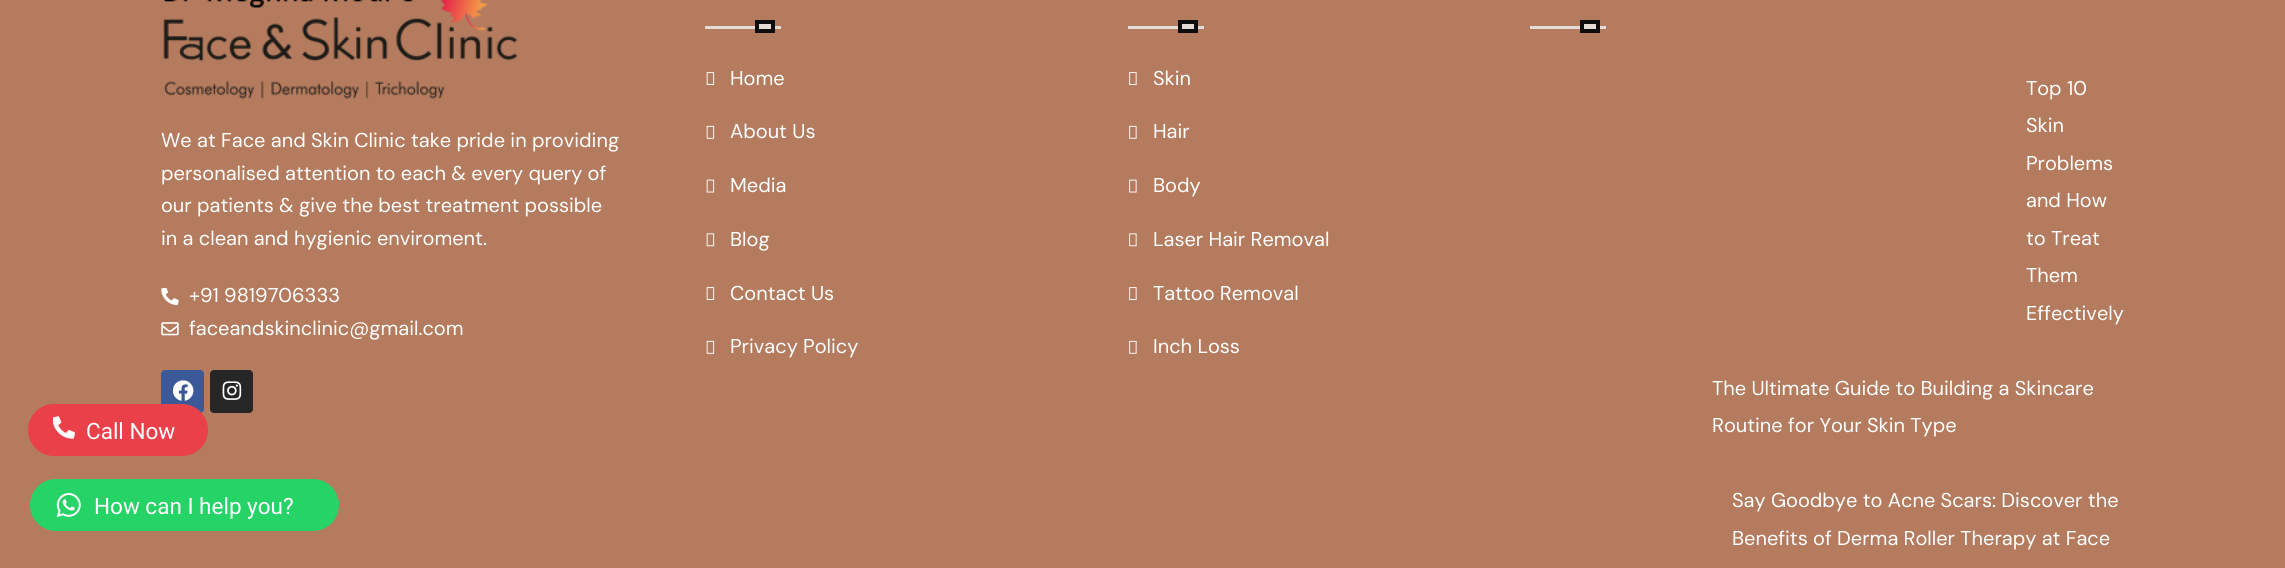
#include <cairo/cairo.h>
#include <math.h>
#include <stddef.h>


static void rounded_rect(cairo_t *cr, double x, double y, double w, double h, double r) {
  cairo_new_sub_path(cr);
  cairo_arc(cr, x + w - r, y + h - r, r, 0, M_PI / 2);
  cairo_arc(cr, x + r, y + h - r, r, M_PI / 2, M_PI);
  cairo_arc(cr, x + r, y + r, r, M_PI, 1.5 * M_PI);
  cairo_arc(cr, x + w - r, y + r, r, 1.5 * M_PI, 2 * M_PI);
  cairo_close_path(cr);
}

static void draw_image(cairo_t *cr, const char *path, double x, double y, double w, double h) {
  cairo_surface_t *image = cairo_image_surface_create_from_png(path);
  cairo_save(cr);
  cairo_set_source_surface(cr, image, x, y);
  cairo_rectangle(cr, x, y, w, h);
  cairo_fill(cr);
  cairo_restore(cr);
  cairo_surface_destroy(image);
}

static void draw(cairo_t *cr) {
  cairo_set_source_rgb(cr, 180 / 255.0, 123 / 255.0, 94 / 255.0);
  cairo_paint(cr);
  draw_image(cr, "images/1.png", 163, 0, 355, 99);
  draw_image(cr, "images/2.png", 161, 288, 18, 17);
  draw_image(cr, "images/3.png", 161, 322, 18, 14);
  cairo_set_source_rgb(cr, 59 / 255.0, 89 / 255.0, 152 / 255.0);
  rounded_rect(cr, 161, 370, 43, 43, 4);
  cairo_fill(cr);
  draw_image(cr, "images/4.png", 173, 380, 21, 21);
  cairo_set_source_rgb(cr, 38 / 255.0, 38 / 255.0, 38 / 255.0);
  rounded_rect(cr, 210, 370, 43, 43, 4);
  cairo_fill(cr);
  draw_image(cr, "images/5.png", 222, 381, 20, 19);
  cairo_set_source_rgb(cr, 229 / 255.0, 220 / 255.0, 216 / 255.0);
  cairo_rectangle(cr, 759, 24, 12, 2);
  cairo_fill(cr);
  cairo_rectangle(cr, 705, 26, 76, 3);
  cairo_fill(cr);
  cairo_rectangle(cr, 757, 22, 16, 9);
  cairo_set_source_rgb(cr, 13 / 255.0, 13 / 255.0, 13 / 255.0);
  cairo_set_line_width(cr, 4);
  cairo_stroke(cr);
  draw_image(cr, "images/6.png", 706, 72, 9, 13);
  draw_image(cr, "images/7.png", 706, 125, 9, 14);
  draw_image(cr, "images/8.png", 706, 179, 9, 14);
  draw_image(cr, "images/9.png", 706, 233, 9, 14);
  draw_image(cr, "images/6.png", 706, 287, 9, 13);
  draw_image(cr, "images/7.png", 706, 340, 9, 14);
  cairo_set_source_rgb(cr, 229 / 255.0, 220 / 255.0, 216 / 255.0);
  cairo_rectangle(cr, 1182, 24, 12, 2);
  cairo_fill(cr);
  cairo_rectangle(cr, 1128, 26, 76, 3);
  cairo_fill(cr);
  cairo_rectangle(cr, 1180, 22, 16, 9);
  cairo_set_source_rgb(cr, 13 / 255.0, 13 / 255.0, 13 / 255.0);
  cairo_stroke(cr);
  draw_image(cr, "images/10.png", 1129, 72, 8, 13);
  draw_image(cr, "images/11.png", 1129, 125, 8, 14);
  draw_image(cr, "images/12.png", 1129, 179, 8, 14);
  draw_image(cr, "images/13.png", 1129, 233, 8, 14);
  draw_image(cr, "images/10.png", 1129, 287, 8, 13);
  draw_image(cr, "images/11.png", 1129, 340, 8, 14);
  cairo_set_source_rgb(cr, 229 / 255.0, 220 / 255.0, 216 / 255.0);
  cairo_rectangle(cr, 1584, 24, 12, 2);
  cairo_fill(cr);
  cairo_rectangle(cr, 1530, 26, 76, 3);
  cairo_fill(cr);
  cairo_rectangle(cr, 1582, 22, 16, 9);
  cairo_set_source_rgb(cr, 13 / 255.0, 13 / 255.0, 13 / 255.0);
  cairo_stroke(cr);
  cairo_set_source_rgb(cr, 234 / 255.0, 64 / 255.0, 74 / 255.0);
  rounded_rect(cr, 28, 404, 180, 52, 26);
  cairo_fill(cr);
  draw_image(cr, "images/14.png", 53, 416, 22, 23);
  cairo_set_source_rgb(cr, 37 / 255.0, 211 / 255.0, 102 / 255.0);
  rounded_rect(cr, 30, 479, 309, 52, 26);
  cairo_fill(cr);
  draw_image(cr, "images/15.png", 56, 493, 25, 24);
  cairo_select_font_face(cr, "DM Sans", CAIRO_FONT_SLANT_NORMAL, CAIRO_FONT_WEIGHT_NORMAL);
  cairo_set_font_size(cr, 20);
  cairo_set_source_rgb(cr, 1, 1, 1);
  cairo_move_to(cr, 161, 147);
  cairo_show_text(cr, "We at Face and Skin Clinic take pride in providing");
  cairo_move_to(cr, 161, 180);
  cairo_show_text(cr, "personalised attention to each & every query of");
  cairo_move_to(cr, 161, 212);
  cairo_show_text(cr, "our patients & give the best treatment possible");
  cairo_move_to(cr, 161, 245);
  cairo_show_text(cr, "in a clean and hygienic enviroment.");
  cairo_move_to(cr, 189, 302);
  cairo_show_text(cr, "+91 9819706333");
  cairo_move_to(cr, 189, 335);
  cairo_show_text(cr, "faceandskinclinic@gmail.com");
  cairo_move_to(cr, 730, 85);
  cairo_show_text(cr, "Home");
  cairo_move_to(cr, 730, 138);
  cairo_show_text(cr, "About Us");
  cairo_move_to(cr, 730, 192);
  cairo_show_text(cr, "Media");
  cairo_move_to(cr, 730, 246);
  cairo_show_text(cr, "Blog");
  cairo_move_to(cr, 730, 300);
  cairo_show_text(cr, "Contact Us");
  cairo_move_to(cr, 730, 353);
  cairo_show_text(cr, "Privacy Policy");
  cairo_move_to(cr, 1153, 85);
  cairo_show_text(cr, "Skin");
  cairo_move_to(cr, 1153, 138);
  cairo_show_text(cr, "Hair");
  cairo_move_to(cr, 1153, 192);
  cairo_show_text(cr, "Body");
  cairo_move_to(cr, 1153, 246);
  cairo_show_text(cr, "Laser Hair Removal");
  cairo_move_to(cr, 1153, 300);
  cairo_show_text(cr, "Tattoo Removal");
  cairo_move_to(cr, 1153, 353);
  cairo_show_text(cr, "Inch Loss");
  cairo_move_to(cr, 2026, 95);
  cairo_show_text(cr, "Top 10");
  cairo_move_to(cr, 2026, 132);
  cairo_show_text(cr, "Skin");
  cairo_move_to(cr, 2026, 170);
  cairo_show_text(cr, "Problems");
  cairo_move_to(cr, 2026, 207);
  cairo_show_text(cr, "and How");
  cairo_move_to(cr, 2026, 245);
  cairo_show_text(cr, "to Treat");
  cairo_move_to(cr, 2026, 282);
  cairo_show_text(cr, "Them");
  cairo_move_to(cr, 2026, 320);
  cairo_show_text(cr, "Effectively");
  cairo_move_to(cr, 1712, 395);
  cairo_show_text(cr, "The Ultimate Guide to Building a Skincare");
  cairo_move_to(cr, 1712, 432);
  cairo_show_text(cr, "Routine for Your Skin Type");
  cairo_move_to(cr, 1732, 507);
  cairo_show_text(cr, "Say Goodbye to Acne Scars: Discover the");
  cairo_move_to(cr, 1732, 545);
  cairo_show_text(cr, "Benefits of Derma Roller Therapy at Face");
  cairo_select_font_face(cr, "Roboto", CAIRO_FONT_SLANT_NORMAL, CAIRO_FONT_WEIGHT_NORMAL);
  cairo_set_font_size(cr, 22.5);
  cairo_move_to(cr, 86, 439);
  cairo_show_text(cr, "Call Now");
  cairo_move_to(cr, 94, 514);
  cairo_show_text(cr, "How can I help you?");
}

int main(void) {
  cairo_surface_t *surface = cairo_image_surface_create(CAIRO_FORMAT_RGB24, 2285, 568);
  cairo_t *cr = cairo_create(surface);
  cairo_font_options_t *options = cairo_font_options_create();
  cairo_font_options_set_hint_metrics(options, CAIRO_HINT_METRICS_OFF);
  cairo_font_options_set_hint_style(options, CAIRO_HINT_STYLE_NONE);
  cairo_set_font_options(cr, options);
  cairo_set_miter_limit(cr, 4);
  draw(cr);
  cairo_surface_write_to_png(surface, "out.png");
  cairo_font_options_destroy(options);
  cairo_destroy(cr);
  cairo_surface_destroy(surface);
  return 0;
}
